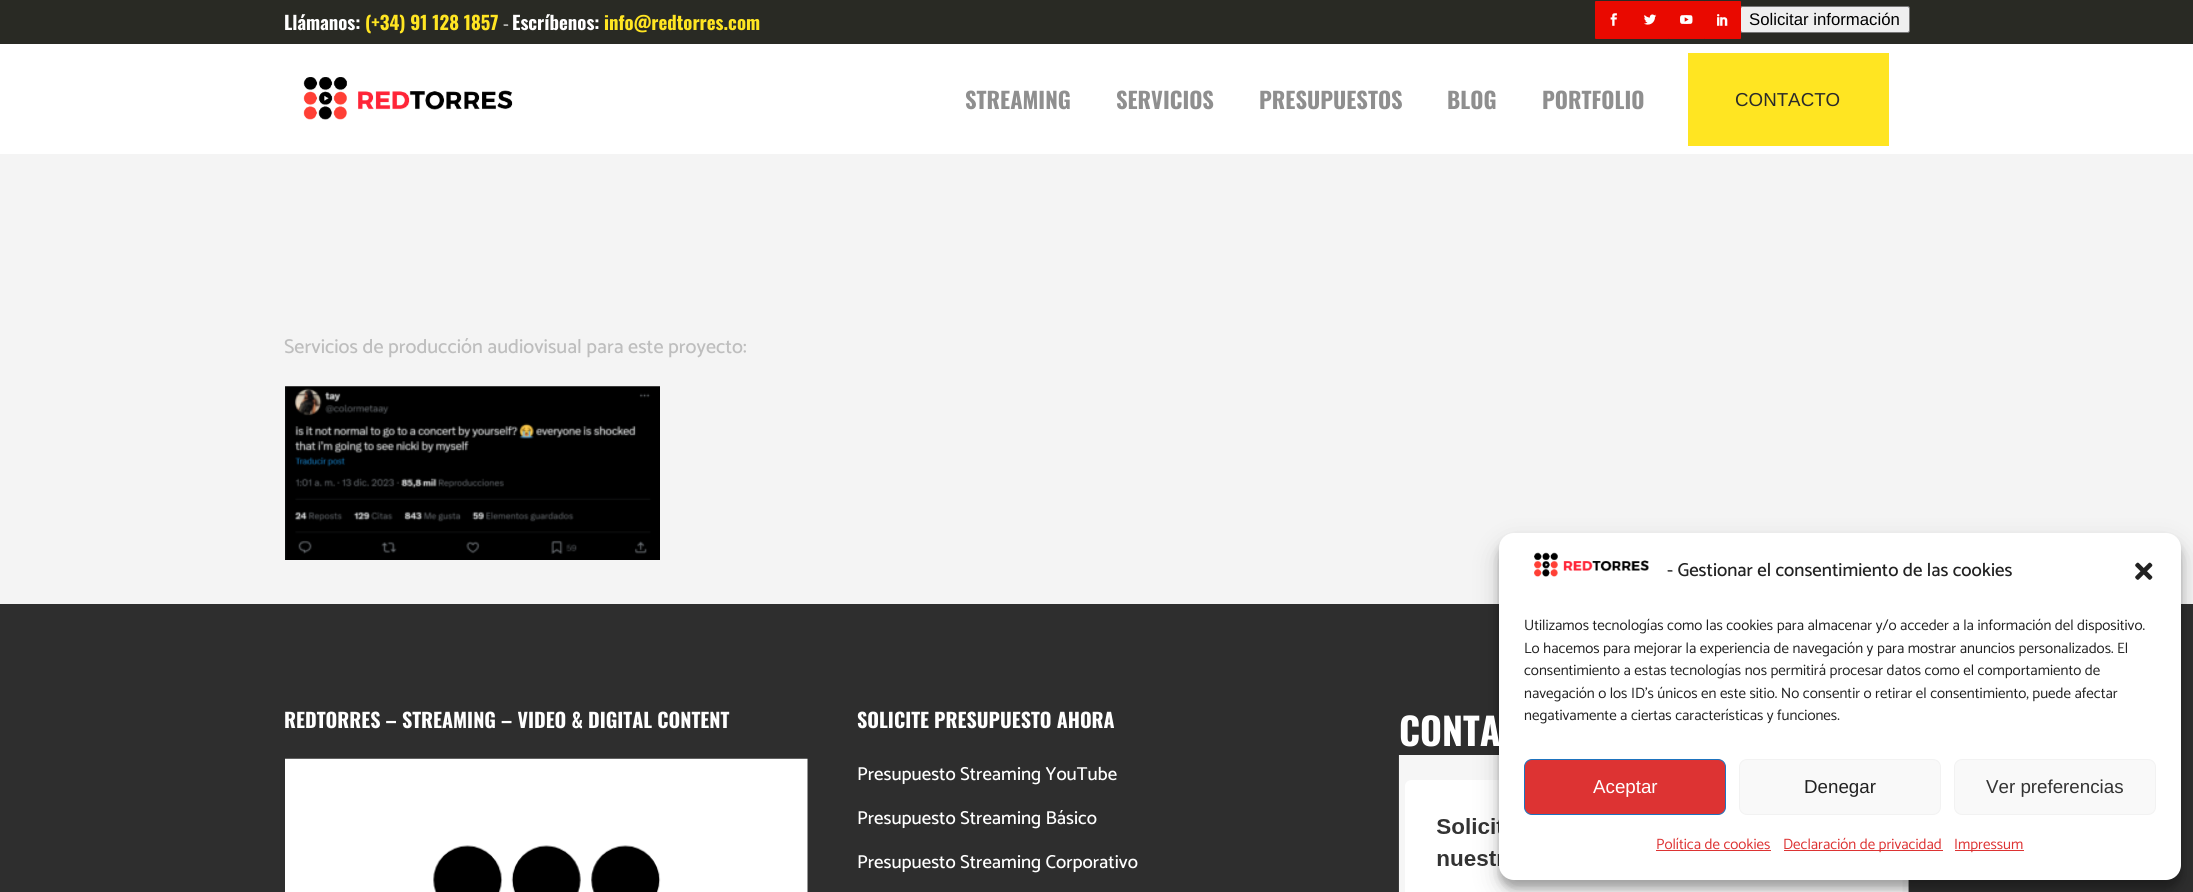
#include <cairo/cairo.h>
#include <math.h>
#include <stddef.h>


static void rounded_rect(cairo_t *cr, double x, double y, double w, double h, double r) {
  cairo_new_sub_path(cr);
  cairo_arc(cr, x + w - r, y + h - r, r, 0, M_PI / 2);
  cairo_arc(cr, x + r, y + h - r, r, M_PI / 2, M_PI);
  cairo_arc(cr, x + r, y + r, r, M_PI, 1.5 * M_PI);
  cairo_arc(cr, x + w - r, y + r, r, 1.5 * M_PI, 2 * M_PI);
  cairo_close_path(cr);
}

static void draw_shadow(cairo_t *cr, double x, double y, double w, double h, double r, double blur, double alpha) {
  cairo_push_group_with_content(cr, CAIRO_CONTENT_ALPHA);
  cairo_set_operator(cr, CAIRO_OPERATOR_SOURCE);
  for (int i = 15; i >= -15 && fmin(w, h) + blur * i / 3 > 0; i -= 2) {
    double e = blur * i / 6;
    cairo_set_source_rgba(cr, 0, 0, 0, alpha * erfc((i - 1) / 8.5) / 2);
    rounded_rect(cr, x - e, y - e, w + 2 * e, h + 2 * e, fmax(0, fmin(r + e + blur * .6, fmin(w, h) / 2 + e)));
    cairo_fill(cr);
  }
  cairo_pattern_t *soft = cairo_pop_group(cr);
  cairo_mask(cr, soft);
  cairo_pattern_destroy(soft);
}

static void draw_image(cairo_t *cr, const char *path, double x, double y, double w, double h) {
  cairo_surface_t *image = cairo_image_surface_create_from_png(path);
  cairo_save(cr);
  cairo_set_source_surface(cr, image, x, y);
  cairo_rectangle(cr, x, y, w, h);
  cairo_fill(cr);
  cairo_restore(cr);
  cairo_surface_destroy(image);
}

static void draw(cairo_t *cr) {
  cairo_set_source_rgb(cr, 244 / 255.0, 244 / 255.0, 244 / 255.0);
  cairo_paint(cr);
  cairo_set_source_rgb(cr, 41 / 255.0, 42 / 255.0, 36 / 255.0);
  cairo_rectangle(cr, 0, 0, 2193, 44);
  cairo_fill(cr);
  cairo_set_source_rgb(cr, 233 / 255.0, 9 / 255.0, 0);
  rounded_rect(cr, 1595, 1, 38, 38, 1);
  cairo_fill(cr);
  draw_image(cr, "images/1.png", 1610, 13, 7, 13);
  rounded_rect(cr, 1631, 1, 38, 38, 1);
  cairo_fill(cr);
  draw_image(cr, "images/2.png", 1644, 14, 13, 11);
  rounded_rect(cr, 1668, 1, 37, 38, 1);
  cairo_fill(cr);
  draw_image(cr, "images/3.png", 1680, 15, 13, 9);
  cairo_set_source_rgb(cr, 239 / 255.0, 239 / 255.0, 239 / 255.0);
  rounded_rect(cr, 1740.5, 6.5, 169, 26, 2);
  cairo_fill_preserve(cr);
  cairo_set_source_rgb(cr, 118 / 255.0, 118 / 255.0, 118 / 255.0);
  cairo_set_line_width(cr, 1);
  cairo_stroke(cr);
  cairo_set_source_rgb(cr, 233 / 255.0, 9 / 255.0, 0);
  rounded_rect(cr, 1704, 1, 37, 38, 1);
  cairo_fill(cr);
  draw_image(cr, "images/4.png", 1717, 14, 11, 12);
  cairo_set_source_rgb(cr, 1, 1, 1);
  cairo_rectangle(cr, 0, 44, 2193, 110);
  cairo_fill(cr);
  draw_image(cr, "images/5.png", 303, 77, 210, 43);
  cairo_set_source_rgb(cr, 1, 229 / 255.0, 34 / 255.0);
  cairo_rectangle(cr, 1688, 53, 201, 93);
  cairo_fill(cr);
  draw_image(cr, "images/6.png", 285, 386, 375, 174);
  cairo_set_source_rgb(cr, 46 / 255.0, 46 / 255.0, 46 / 255.0);
  cairo_rectangle(cr, 0, 604, 2193, 288);
  cairo_fill(cr);
  draw_image(cr, "images/7.png", 285, 758, 523, 134);
  draw_image(cr, "images/8.png", 1398, 755, 511, 137);
  cairo_set_source_rgb(cr, 0, 0, 0);
  draw_shadow(cr, 1499, 540, 682, 348, 15, 4, 0.23);
  draw_shadow(cr, 1499, 545, 682, 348, 15, 12.5, 0.19);
  cairo_set_source_rgb(cr, 1, 1, 1);
  rounded_rect(cr, 1499, 533, 682, 347, 15);
  cairo_fill(cr);
  draw_image(cr, "images/9.png", 1534, 552, 115, 25);
  draw_image(cr, "images/10.png", 2135, 562, 18, 18);
  cairo_set_source_rgb(cr, 221 / 255.0, 51 / 255.0, 51 / 255.0);
  rounded_rect(cr, 1524.5, 759.5, 201, 55, 7.5);
  cairo_fill_preserve(cr);
  cairo_set_source_rgb(cr, 30 / 255.0, 115 / 255.0, 190 / 255.0);
  cairo_stroke(cr);
  cairo_set_source_rgb(cr, 249 / 255.0, 249 / 255.0, 249 / 255.0);
  rounded_rect(cr, 1739.5, 759.5, 201, 55, 7.5);
  cairo_fill_preserve(cr);
  cairo_set_source_rgb(cr, 242 / 255.0, 242 / 255.0, 242 / 255.0);
  cairo_stroke(cr);
  cairo_set_source_rgb(cr, 249 / 255.0, 249 / 255.0, 249 / 255.0);
  rounded_rect(cr, 1954.5, 759.5, 201, 55, 7.5);
  cairo_fill_preserve(cr);
  cairo_set_source_rgb(cr, 242 / 255.0, 242 / 255.0, 242 / 255.0);
  cairo_stroke(cr);
  cairo_set_source_rgb(cr, 221 / 255.0, 51 / 255.0, 51 / 255.0);
  cairo_rectangle(cr, 1656, 850, 115, 1);
  cairo_fill(cr);
  cairo_rectangle(cr, 1784, 850, 159, 1);
  cairo_fill(cr);
  cairo_rectangle(cr, 1955, 850, 69, 1);
  cairo_fill(cr);
  cairo_select_font_face(cr, "Oswald", CAIRO_FONT_SLANT_NORMAL, CAIRO_FONT_WEIGHT_BOLD);
  cairo_set_font_size(cr, 18.75);
  cairo_set_source_rgb(cr, 1, 1, 1);
  cairo_move_to(cr, 284, 30);
  cairo_show_text(cr, "Llámanos:");
  cairo_set_source_rgb(cr, 1, 229 / 255.0, 34 / 255.0);
  cairo_move_to(cr, 365, 30);
  cairo_show_text(cr, "(+34) 91 128 1857");
  cairo_select_font_face(cr, "Catamaran", CAIRO_FONT_SLANT_NORMAL, CAIRO_FONT_WEIGHT_NORMAL);
  cairo_set_font_size(cr, 18);
  cairo_set_source_rgb(cr, 1, 1, 1);
  cairo_move_to(cr, 503, 30);
  cairo_show_text(cr, "-");
  cairo_select_font_face(cr, "Oswald", CAIRO_FONT_SLANT_NORMAL, CAIRO_FONT_WEIGHT_BOLD);
  cairo_set_font_size(cr, 18.75);
  cairo_move_to(cr, 512, 30);
  cairo_show_text(cr, "Escríbenos:");
  cairo_set_source_rgb(cr, 1, 229 / 255.0, 34 / 255.0);
  cairo_move_to(cr, 604, 30);
  cairo_show_text(cr, "info@redtorres.com");
  cairo_select_font_face(cr, "Liberation Sans", CAIRO_FONT_SLANT_NORMAL, CAIRO_FONT_WEIGHT_NORMAL);
  cairo_set_font_size(cr, 16.75);
  cairo_set_source_rgb(cr, 0, 0, 0);
  cairo_move_to(cr, 1749, 25);
  cairo_show_text(cr, "Solicitar información");
  cairo_select_font_face(cr, "Oswald", CAIRO_FONT_SLANT_NORMAL, CAIRO_FONT_WEIGHT_BOLD);
  cairo_set_font_size(cr, 22.5);
  cairo_set_source_rgb(cr, 143 / 255.0, 143 / 255.0, 143 / 255.0);
  cairo_move_to(cr, 965, 109);
  cairo_show_text(cr, "STREAMING");
  cairo_move_to(cr, 1116, 109);
  cairo_show_text(cr, "SERVICIOS");
  cairo_move_to(cr, 1259, 109);
  cairo_show_text(cr, "PRESUPUESTOS");
  cairo_move_to(cr, 1447, 109);
  cairo_show_text(cr, "BLOG");
  cairo_move_to(cr, 1542, 109);
  cairo_show_text(cr, "PORTFOLIO");
  cairo_select_font_face(cr, "Liberation Sans", CAIRO_FONT_SLANT_NORMAL, CAIRO_FONT_WEIGHT_NORMAL);
  cairo_set_font_size(cr, 18.75);
  cairo_set_source_rgb(cr, 42 / 255.0, 42 / 255.0, 42 / 255.0);
  cairo_move_to(cr, 1735, 106);
  cairo_show_text(cr, "CONTACTO");
  cairo_select_font_face(cr, "Catamaran Medium", CAIRO_FONT_SLANT_NORMAL, CAIRO_FONT_WEIGHT_NORMAL);
  cairo_set_font_size(cr, 20);
  cairo_set_source_rgb(cr, 190 / 255.0, 190 / 255.0, 190 / 255.0);
  cairo_move_to(cr, 284, 353);
  cairo_show_text(cr, "Servicios de producción audiovisual para este proyecto:");
  cairo_select_font_face(cr, "Oswald", CAIRO_FONT_SLANT_NORMAL, CAIRO_FONT_WEIGHT_BOLD);
  cairo_set_source_rgb(cr, 1, 1, 1);
  cairo_move_to(cr, 284, 728);
  cairo_show_text(cr, "REDTORRES – STREAMING – VIDEO & DIGITAL CONTENT");
  cairo_move_to(cr, 857, 728);
  cairo_show_text(cr, "SOLICITE PRESUPUESTO AHORA");
  cairo_select_font_face(cr, "Catamaran Medium", CAIRO_FONT_SLANT_NORMAL, CAIRO_FONT_WEIGHT_NORMAL);
  cairo_set_font_size(cr, 18.75);
  cairo_move_to(cr, 857, 780);
  cairo_show_text(cr, "Presupuesto Streaming YouTube");
  cairo_move_to(cr, 857, 824);
  cairo_show_text(cr, "Presupuesto Streaming Básico");
  cairo_move_to(cr, 857, 868);
  cairo_show_text(cr, "Presupuesto Streaming Corporativo");
  cairo_select_font_face(cr, "Oswald", CAIRO_FONT_SLANT_NORMAL, CAIRO_FONT_WEIGHT_BOLD);
  cairo_set_font_size(cr, 37.5);
  cairo_move_to(cr, 1399, 746);
  cairo_show_text(cr, "CONTA");
  cairo_select_font_face(cr, "Catamaran Medium", CAIRO_FONT_SLANT_NORMAL, CAIRO_FONT_WEIGHT_NORMAL);
  cairo_set_font_size(cr, 18.75);
  cairo_set_source_rgb(cr, 34 / 255.0, 34 / 255.0, 34 / 255.0);
  cairo_move_to(cr, 1667, 576);
  cairo_show_text(cr, "- Gestionar el consentimiento de las cookies");
  cairo_select_font_face(cr, "Catamaran", CAIRO_FONT_SLANT_NORMAL, CAIRO_FONT_WEIGHT_NORMAL);
  cairo_set_font_size(cr, 15);
  cairo_move_to(cr, 1524, 630);
  cairo_show_text(cr, "Utilizamos tecnologías como las cookies para almacenar y/o acceder a la información del dispositivo.");
  cairo_move_to(cr, 1524, 653);
  cairo_show_text(cr, "Lo hacemos para mejorar la experiencia de navegación y para mostrar anuncios personalizados. El");
  cairo_move_to(cr, 1524, 675);
  cairo_show_text(cr, "consentimiento a estas tecnologías nos permitirá procesar datos como el comportamiento de");
  cairo_move_to(cr, 1524, 698);
  cairo_show_text(cr, "navegación o los ID's únicos en este sitio. No consentir o retirar el consentimiento, puede afectar");
  cairo_move_to(cr, 1524, 720);
  cairo_show_text(cr, "negativamente a ciertas características y funciones.");
  cairo_select_font_face(cr, "Liberation Sans", CAIRO_FONT_SLANT_NORMAL, CAIRO_FONT_WEIGHT_NORMAL);
  cairo_set_font_size(cr, 18.75);
  cairo_set_source_rgb(cr, 1, 1, 1);
  cairo_move_to(cr, 1593, 793);
  cairo_show_text(cr, "Aceptar");
  cairo_set_source_rgb(cr, 34 / 255.0, 34 / 255.0, 34 / 255.0);
  cairo_move_to(cr, 1804, 793);
  cairo_show_text(cr, "Denegar");
  cairo_set_source_rgb(cr, 51 / 255.0, 51 / 255.0, 51 / 255.0);
  cairo_move_to(cr, 1986, 793);
  cairo_show_text(cr, "Ver preferencias");
  cairo_select_font_face(cr, "Catamaran", CAIRO_FONT_SLANT_NORMAL, CAIRO_FONT_WEIGHT_NORMAL);
  cairo_set_font_size(cr, 15);
  cairo_set_source_rgb(cr, 221 / 255.0, 51 / 255.0, 51 / 255.0);
  cairo_move_to(cr, 1656, 849);
  cairo_show_text(cr, "Política de cookies");
  cairo_move_to(cr, 1783, 849);
  cairo_show_text(cr, "Declaración de privacidad");
  cairo_move_to(cr, 1954, 849);
  cairo_show_text(cr, "Impressum");
}

int main(void) {
  cairo_surface_t *surface = cairo_image_surface_create(CAIRO_FORMAT_RGB24, 2193, 892);
  cairo_t *cr = cairo_create(surface);
  cairo_font_options_t *options = cairo_font_options_create();
  cairo_font_options_set_hint_metrics(options, CAIRO_HINT_METRICS_OFF);
  cairo_font_options_set_hint_style(options, CAIRO_HINT_STYLE_NONE);
  cairo_set_font_options(cr, options);
  cairo_set_miter_limit(cr, 4);
  draw(cr);
  cairo_surface_write_to_png(surface, "out.png");
  cairo_font_options_destroy(options);
  cairo_destroy(cr);
  cairo_surface_destroy(surface);
  return 0;
}
